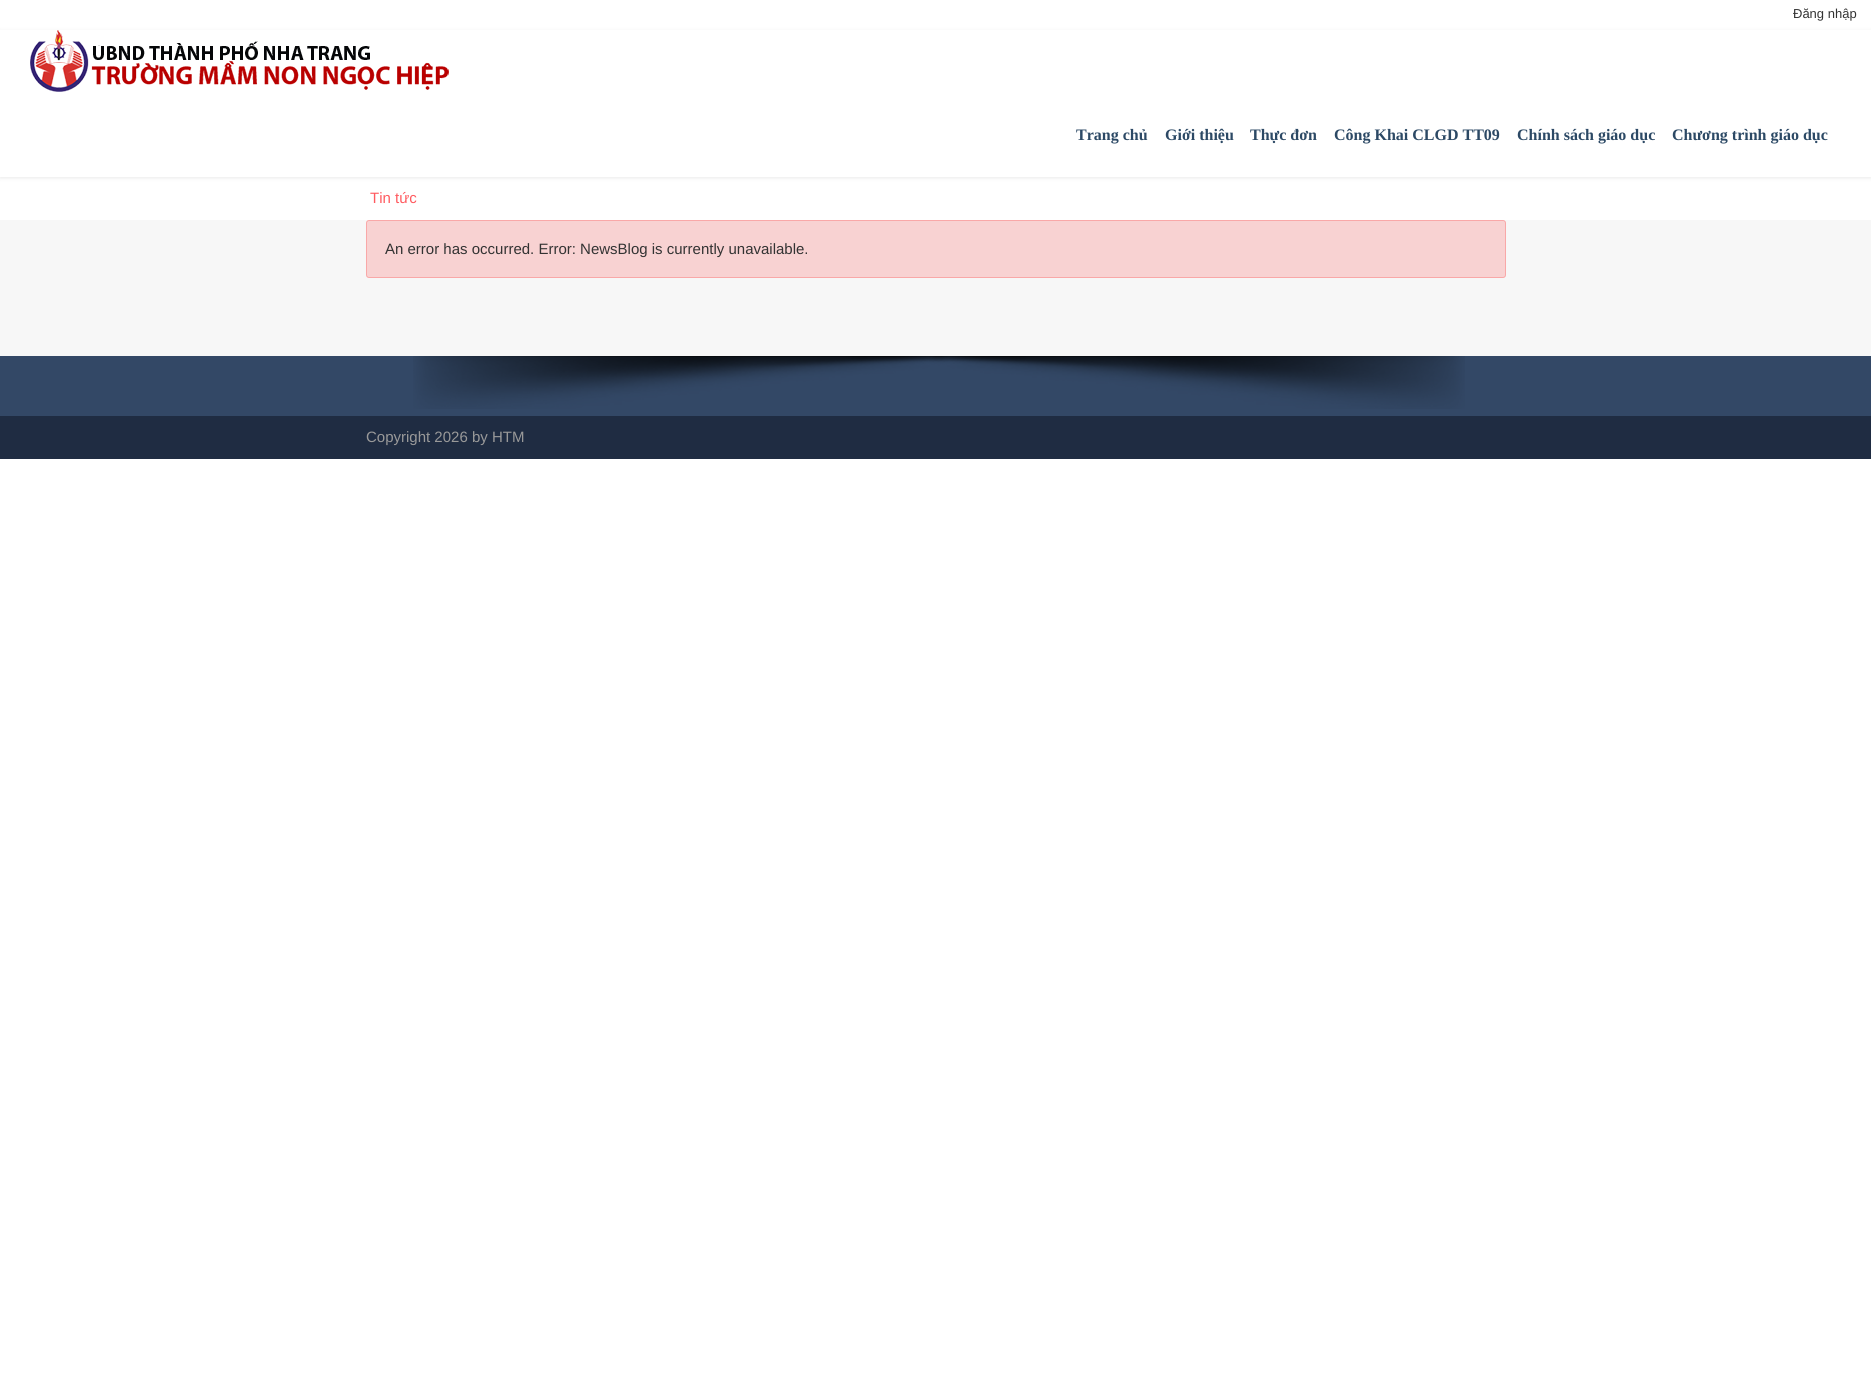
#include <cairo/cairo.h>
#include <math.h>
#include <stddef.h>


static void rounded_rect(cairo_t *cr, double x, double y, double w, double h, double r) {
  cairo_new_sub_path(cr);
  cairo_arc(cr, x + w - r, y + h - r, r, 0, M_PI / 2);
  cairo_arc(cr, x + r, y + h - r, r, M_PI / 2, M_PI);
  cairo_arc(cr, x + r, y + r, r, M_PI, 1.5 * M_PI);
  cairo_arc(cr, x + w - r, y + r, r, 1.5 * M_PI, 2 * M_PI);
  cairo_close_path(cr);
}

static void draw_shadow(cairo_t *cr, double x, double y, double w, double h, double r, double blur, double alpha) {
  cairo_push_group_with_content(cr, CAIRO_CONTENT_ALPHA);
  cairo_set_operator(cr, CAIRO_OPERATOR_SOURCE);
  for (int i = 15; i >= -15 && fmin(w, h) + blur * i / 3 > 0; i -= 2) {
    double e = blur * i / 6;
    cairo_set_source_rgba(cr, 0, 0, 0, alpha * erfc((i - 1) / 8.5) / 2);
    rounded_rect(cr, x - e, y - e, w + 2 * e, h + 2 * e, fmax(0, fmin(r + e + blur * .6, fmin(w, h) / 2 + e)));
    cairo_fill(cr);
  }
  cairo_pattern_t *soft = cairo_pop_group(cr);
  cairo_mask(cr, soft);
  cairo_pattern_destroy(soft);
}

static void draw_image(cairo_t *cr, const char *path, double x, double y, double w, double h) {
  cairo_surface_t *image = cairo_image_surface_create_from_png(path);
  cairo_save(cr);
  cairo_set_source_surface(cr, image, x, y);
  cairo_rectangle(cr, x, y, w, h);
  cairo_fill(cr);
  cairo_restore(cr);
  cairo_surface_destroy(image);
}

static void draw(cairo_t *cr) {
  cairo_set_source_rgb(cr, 1, 1, 1);
  cairo_paint(cr);
  cairo_save(cr);
  cairo_set_fill_rule(cr, CAIRO_FILL_RULE_EVEN_ODD);
  cairo_new_path(cr);
  cairo_move_to(cr, 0, 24);
  cairo_line_to(cr, 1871, 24);
  cairo_line_to(cr, 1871, 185);
  cairo_line_to(cr, 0, 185);
  cairo_close_path(cr);
  cairo_move_to(cr, 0, 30);
  cairo_line_to(cr, 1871, 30);
  cairo_line_to(cr, 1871, 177);
  cairo_line_to(cr, 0, 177);
  cairo_close_path(cr);
  cairo_clip(cr);
  cairo_set_source_rgb(cr, 0, 0, 0);
  draw_shadow(cr, 0, 31, 1871, 147, 0, 2, 0.09);
  cairo_restore(cr);
  draw_image(cr, "images/1.png", 30, 30, 419, 62);
  cairo_set_source_rgb(cr, 247 / 255.0, 247 / 255.0, 247 / 255.0);
  cairo_rectangle(cr, 0, 220, 1871, 136);
  cairo_fill(cr);
  cairo_set_source_rgb(cr, 248 / 255.0, 210 / 255.0, 210 / 255.0);
  rounded_rect(cr, 366, 220, 1140, 58, 3);
  cairo_fill(cr);
  rounded_rect(cr, 366.5, 220.5, 1139, 57, 2.5);
  cairo_set_source_rgba(cr, 1, 0, 0, 0.2);
  cairo_set_line_width(cr, 1);
  cairo_stroke(cr);
  cairo_set_source_rgb(cr, 51 / 255.0, 72 / 255.0, 102 / 255.0);
  cairo_rectangle(cr, 0, 356, 1871, 60);
  cairo_fill(cr);
  draw_image(cr, "images/2.png", 413, 356, 1052, 53);
  cairo_set_source_rgb(cr, 31 / 255.0, 44 / 255.0, 66 / 255.0);
  cairo_rectangle(cr, 0, 416, 1871, 43);
  cairo_fill(cr);
  cairo_select_font_face(cr, "Liberation Sans", CAIRO_FONT_SLANT_NORMAL, CAIRO_FONT_WEIGHT_NORMAL);
  cairo_set_font_size(cr, 13);
  cairo_set_source_rgb(cr, 51 / 255.0, 51 / 255.0, 51 / 255.0);
  cairo_move_to(cr, 1793, 18);
  cairo_show_text(cr, "Đăng nhập");
  cairo_select_font_face(cr, "Liberation Serif", CAIRO_FONT_SLANT_NORMAL, CAIRO_FONT_WEIGHT_BOLD);
  cairo_set_font_size(cr, 16);
  cairo_set_source_rgb(cr, 44 / 255.0, 73 / 255.0, 101 / 255.0);
  cairo_move_to(cr, 1076, 140);
  cairo_show_text(cr, "Trang chủ");
  cairo_move_to(cr, 1165, 140);
  cairo_show_text(cr, "Giới thiệu");
  cairo_move_to(cr, 1250, 140);
  cairo_show_text(cr, "Thực đơn");
  cairo_move_to(cr, 1334, 140);
  cairo_show_text(cr, "Công Khai CLGD TT09");
  cairo_move_to(cr, 1517, 140);
  cairo_show_text(cr, "Chính sách giáo dục");
  cairo_move_to(cr, 1672, 140);
  cairo_show_text(cr, "Chương trình giáo dục");
  cairo_select_font_face(cr, "Liberation Sans", CAIRO_FONT_SLANT_NORMAL, CAIRO_FONT_WEIGHT_NORMAL);
  cairo_set_font_size(cr, 15);
  cairo_set_source_rgb(cr, 1, 90 / 255.0, 95 / 255.0);
  cairo_move_to(cr, 370, 203);
  cairo_show_text(cr, "Tin tức");
  cairo_set_source_rgb(cr, 51 / 255.0, 51 / 255.0, 51 / 255.0);
  cairo_move_to(cr, 385, 254);
  cairo_show_text(cr, "An error has occurred. Error: NewsBlog is currently unavailable.");
  cairo_set_source_rgb(cr, 153 / 255.0, 153 / 255.0, 153 / 255.0);
  cairo_move_to(cr, 366, 442);
  cairo_show_text(cr, "Copyright 2026 by HTM");
}

int main(void) {
  cairo_surface_t *surface = cairo_image_surface_create(CAIRO_FORMAT_RGB24, 1871, 1390);
  cairo_t *cr = cairo_create(surface);
  cairo_font_options_t *options = cairo_font_options_create();
  cairo_font_options_set_hint_metrics(options, CAIRO_HINT_METRICS_OFF);
  cairo_font_options_set_hint_style(options, CAIRO_HINT_STYLE_NONE);
  cairo_set_font_options(cr, options);
  cairo_set_miter_limit(cr, 4);
  draw(cr);
  cairo_surface_write_to_png(surface, "out.png");
  cairo_font_options_destroy(options);
  cairo_destroy(cr);
  cairo_surface_destroy(surface);
  return 0;
}
